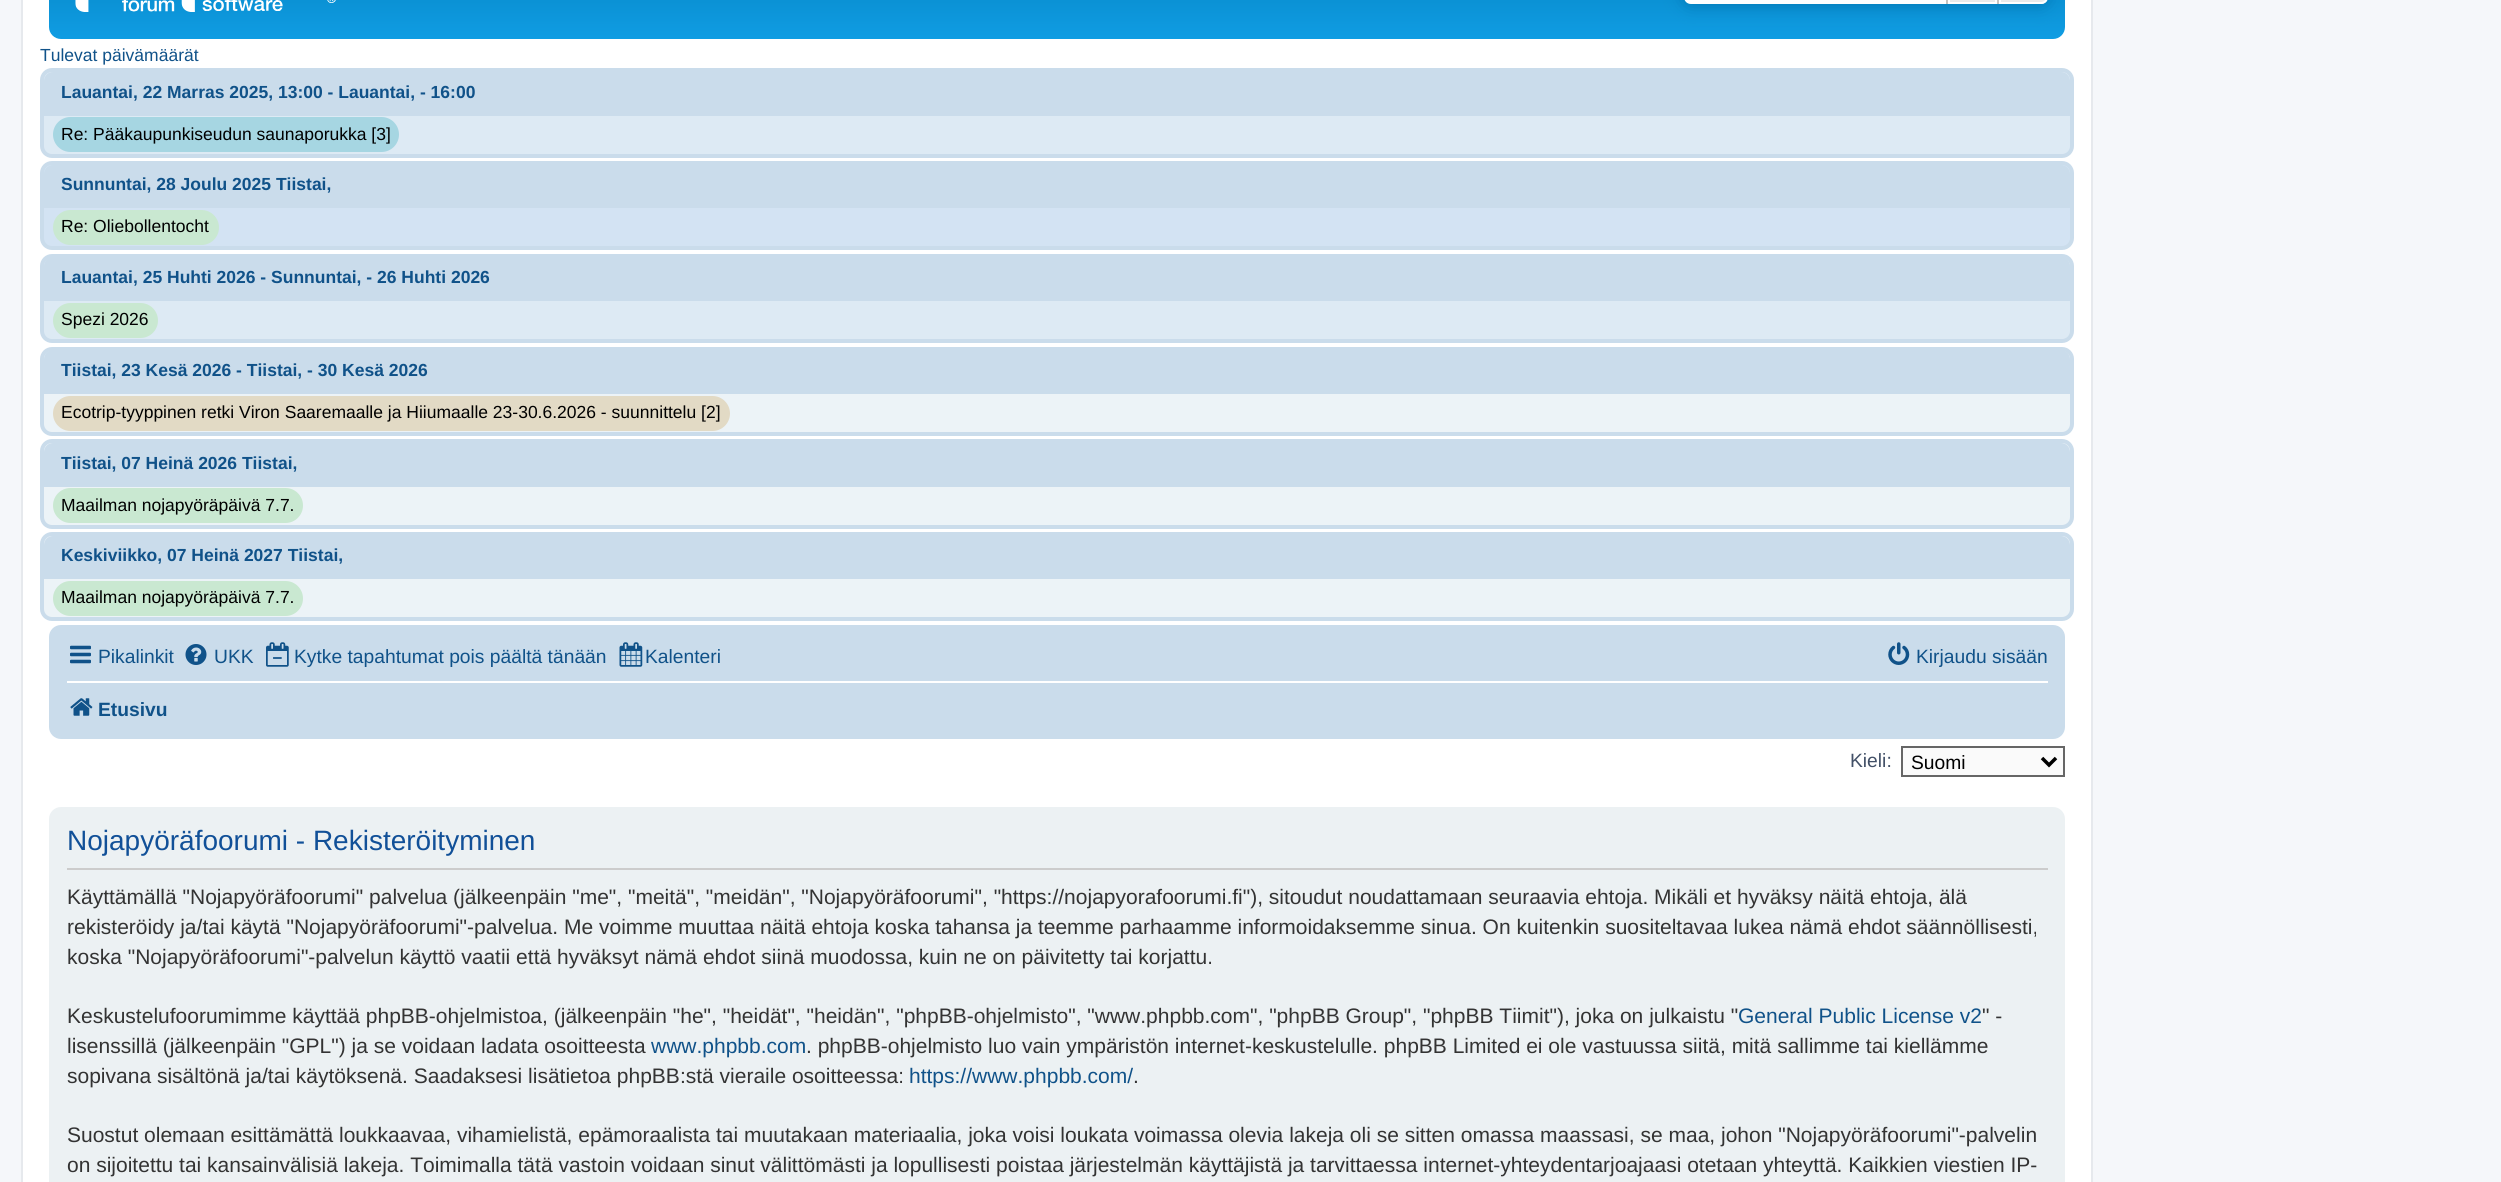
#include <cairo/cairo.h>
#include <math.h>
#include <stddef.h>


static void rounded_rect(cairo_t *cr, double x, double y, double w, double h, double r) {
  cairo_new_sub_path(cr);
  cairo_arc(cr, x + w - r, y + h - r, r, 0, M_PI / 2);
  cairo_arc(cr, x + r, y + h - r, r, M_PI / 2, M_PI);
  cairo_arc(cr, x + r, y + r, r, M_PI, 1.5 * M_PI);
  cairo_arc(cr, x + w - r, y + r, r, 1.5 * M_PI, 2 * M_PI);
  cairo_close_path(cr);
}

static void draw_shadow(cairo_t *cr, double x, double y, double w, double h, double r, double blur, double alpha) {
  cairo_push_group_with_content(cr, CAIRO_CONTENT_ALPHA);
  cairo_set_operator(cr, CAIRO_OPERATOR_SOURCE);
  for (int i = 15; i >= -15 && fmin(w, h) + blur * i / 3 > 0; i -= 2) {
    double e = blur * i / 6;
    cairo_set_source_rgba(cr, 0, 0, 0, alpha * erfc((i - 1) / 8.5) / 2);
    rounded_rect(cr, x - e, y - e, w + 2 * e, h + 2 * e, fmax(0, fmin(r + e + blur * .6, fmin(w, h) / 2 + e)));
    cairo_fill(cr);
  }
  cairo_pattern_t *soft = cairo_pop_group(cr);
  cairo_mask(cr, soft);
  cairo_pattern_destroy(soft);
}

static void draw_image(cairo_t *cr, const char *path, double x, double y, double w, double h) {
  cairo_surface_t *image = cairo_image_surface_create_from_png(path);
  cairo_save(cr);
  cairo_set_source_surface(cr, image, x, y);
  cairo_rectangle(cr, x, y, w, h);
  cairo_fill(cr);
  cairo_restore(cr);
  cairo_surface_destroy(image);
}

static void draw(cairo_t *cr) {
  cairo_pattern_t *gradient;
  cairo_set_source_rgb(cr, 245 / 255.0, 247 / 255.0, 250 / 255.0);
  cairo_paint(cr);
  cairo_set_source_rgb(cr, 1, 1, 1);
  cairo_rectangle(cr, 22, -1, 2070, 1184);
  cairo_fill_preserve(cr);
  cairo_set_source_rgb(cr, 230 / 255.0, 233 / 255.0, 237 / 255.0);
  cairo_stroke(cr);
  gradient = cairo_pattern_create_linear(1057, -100, 1057, 61);
  cairo_pattern_add_color_stop_rgba(gradient, 0, 106 / 255.0, 206 / 255.0, 1, 1);
  cairo_pattern_add_color_stop_rgba(gradient, 0.02, 0, 118 / 255.0, 177 / 255.0, 1);
  cairo_pattern_add_color_stop_rgba(gradient, 1, 18 / 255.0, 163 / 255.0, 235 / 255.0, 1);
  cairo_set_source(cr, gradient);
  cairo_pattern_destroy(gradient);
  rounded_rect(cr, 49, -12, 2016, 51, 12);
  cairo_fill(cr);
  draw_image(cr, "images/1.png", 75, 0, 261, 12);
  cairo_set_source_rgb(cr, 0, 117 / 255.0, 176 / 255.0);
  draw_shadow(cr, 1684, -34, 364, 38, 7, 9, 1);
  cairo_set_source_rgb(cr, 1, 1, 1);
  cairo_new_path(cr);
  cairo_move_to(cr, 1691, -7);
  cairo_line_to(cr, 1946, -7);
  cairo_line_to(cr, 1946, 4);
  cairo_line_to(cr, 1691, 4);
  cairo_curve_to(cr, 1687, 4, 1684, 1, 1684, -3);
  cairo_line_to(cr, 1684, 0);
  cairo_curve_to(cr, 1684, -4, 1687, -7, 1691, -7);
  cairo_close_path(cr);
  cairo_fill(cr);
  gradient = cairo_pattern_create_linear(1972, -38, 1972, 3.5);
  cairo_pattern_add_color_stop_rgba(gradient, 0, 1, 1, 1, 1);
  cairo_pattern_add_color_stop_rgba(gradient, 1, 233 / 255.0, 233 / 255.0, 233 / 255.0, 1);
  cairo_set_source(cr, gradient);
  cairo_pattern_destroy(gradient);
  cairo_rectangle(cr, 1948, 0, 49, 2);
  cairo_fill(cr);
  cairo_rectangle(cr, 1949, -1, 47, 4);
  cairo_set_source_rgb(cr, 1, 1, 1);
  cairo_stroke(cr);
  cairo_set_source_rgb(cr, 199 / 255.0, 195 / 255.0, 191 / 255.0);
  cairo_rectangle(cr, 1997, 0, 2, 4);
  cairo_fill(cr);
  cairo_rectangle(cr, 1946, 0, 2, 4);
  cairo_fill(cr);
  gradient = cairo_pattern_create_linear(2023, -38, 2023, 3.5);
  cairo_pattern_add_color_stop_rgba(gradient, 0, 1, 1, 1, 1);
  cairo_pattern_add_color_stop_rgba(gradient, 1, 233 / 255.0, 233 / 255.0, 233 / 255.0, 1);
  cairo_set_source(cr, gradient);
  cairo_pattern_destroy(gradient);
  cairo_new_path(cr);
  cairo_move_to(cr, 1999, -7);
  cairo_line_to(cr, 2041, -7);
  cairo_curve_to(cr, 2045, -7, 2048, -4, 2048, 0);
  cairo_line_to(cr, 2048, -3);
  cairo_curve_to(cr, 2048, 1, 2045, 4, 2041, 4);
  cairo_line_to(cr, 1999, 4);
  cairo_close_path(cr);
  cairo_fill(cr);
  cairo_new_path(cr);
  cairo_move_to(cr, 2000, -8);
  cairo_line_to(cr, 2041, -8);
  cairo_curve_to(cr, 2044.5, -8, 2047, -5.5, 2047, -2);
  cairo_line_to(cr, 2047, -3);
  cairo_curve_to(cr, 2047, 0.5, 2044.5, 3, 2041, 3);
  cairo_line_to(cr, 2000, 3);
  cairo_close_path(cr);
  cairo_set_source_rgb(cr, 1, 1, 1);
  cairo_stroke(cr);
  cairo_set_source_rgb(cr, 221 / 255.0, 234 / 255.0, 244 / 255.0);
  rounded_rect(cr, 42, 70, 2030, 86, 10);
  cairo_fill_preserve(cr);
  cairo_set_source_rgb(cr, 202 / 255.0, 220 / 255.0, 235 / 255.0);
  cairo_set_line_width(cr, 4);
  cairo_stroke(cr);
  cairo_new_path(cr);
  cairo_move_to(cr, 53, 72);
  cairo_line_to(cr, 2061, 72);
  cairo_curve_to(cr, 2066, 72, 2070, 76, 2070, 81);
  cairo_line_to(cr, 2070, 116);
  cairo_line_to(cr, 44, 116);
  cairo_line_to(cr, 44, 81);
  cairo_curve_to(cr, 44, 76, 48, 72, 53, 72);
  cairo_close_path(cr);
  cairo_fill(cr);
  cairo_set_source_rgb(cr, 166 / 255.0, 214 / 255.0, 226 / 255.0);
  rounded_rect(cr, 53, 117, 346, 35, 17.5);
  cairo_fill(cr);
  cairo_set_source_rgb(cr, 211 / 255.0, 227 / 255.0, 243 / 255.0);
  rounded_rect(cr, 42, 163, 2030, 85, 10);
  cairo_fill_preserve(cr);
  cairo_set_source_rgb(cr, 202 / 255.0, 220 / 255.0, 235 / 255.0);
  cairo_stroke(cr);
  cairo_new_path(cr);
  cairo_move_to(cr, 53, 165);
  cairo_line_to(cr, 2061, 165);
  cairo_curve_to(cr, 2066, 165, 2070, 169, 2070, 174);
  cairo_line_to(cr, 2070, 208);
  cairo_line_to(cr, 44, 208);
  cairo_line_to(cr, 44, 174);
  cairo_curve_to(cr, 44, 169, 48, 165, 53, 165);
  cairo_close_path(cr);
  cairo_fill(cr);
  cairo_set_source_rgb(cr, 201 / 255.0, 232 / 255.0, 209 / 255.0);
  rounded_rect(cr, 53, 210, 166, 35, 17.5);
  cairo_fill(cr);
  cairo_set_source_rgb(cr, 221 / 255.0, 234 / 255.0, 244 / 255.0);
  rounded_rect(cr, 42, 256, 2030, 85, 10);
  cairo_fill_preserve(cr);
  cairo_set_source_rgb(cr, 202 / 255.0, 220 / 255.0, 235 / 255.0);
  cairo_stroke(cr);
  cairo_new_path(cr);
  cairo_move_to(cr, 53, 257);
  cairo_line_to(cr, 2061, 257);
  cairo_curve_to(cr, 2066, 257, 2070, 261, 2070, 266);
  cairo_line_to(cr, 2070, 301);
  cairo_line_to(cr, 44, 301);
  cairo_line_to(cr, 44, 266);
  cairo_curve_to(cr, 44, 261, 48, 257, 53, 257);
  cairo_close_path(cr);
  cairo_fill(cr);
  cairo_set_source_rgb(cr, 201 / 255.0, 232 / 255.0, 209 / 255.0);
  rounded_rect(cr, 53, 303, 105, 35, 17.5);
  cairo_fill(cr);
  cairo_set_source_rgb(cr, 236 / 255.0, 243 / 255.0, 247 / 255.0);
  rounded_rect(cr, 42, 349, 2030, 85, 10);
  cairo_fill_preserve(cr);
  cairo_set_source_rgb(cr, 202 / 255.0, 220 / 255.0, 235 / 255.0);
  cairo_stroke(cr);
  cairo_new_path(cr);
  cairo_move_to(cr, 53, 350);
  cairo_line_to(cr, 2061, 350);
  cairo_curve_to(cr, 2066, 350, 2070, 354, 2070, 359);
  cairo_line_to(cr, 2070, 394);
  cairo_line_to(cr, 44, 394);
  cairo_line_to(cr, 44, 359);
  cairo_curve_to(cr, 44, 354, 48, 350, 53, 350);
  cairo_close_path(cr);
  cairo_fill(cr);
  cairo_set_source_rgb(cr, 226 / 255.0, 218 / 255.0, 197 / 255.0);
  rounded_rect(cr, 53, 396, 677, 35, 17.5);
  cairo_fill(cr);
  cairo_set_source_rgb(cr, 236 / 255.0, 243 / 255.0, 247 / 255.0);
  rounded_rect(cr, 42, 441, 2030, 86, 10);
  cairo_fill_preserve(cr);
  cairo_set_source_rgb(cr, 202 / 255.0, 220 / 255.0, 235 / 255.0);
  cairo_stroke(cr);
  cairo_new_path(cr);
  cairo_move_to(cr, 53, 443);
  cairo_line_to(cr, 2061, 443);
  cairo_curve_to(cr, 2066, 443, 2070, 447, 2070, 452);
  cairo_line_to(cr, 2070, 487);
  cairo_line_to(cr, 44, 487);
  cairo_line_to(cr, 44, 452);
  cairo_curve_to(cr, 44, 447, 48, 443, 53, 443);
  cairo_close_path(cr);
  cairo_fill(cr);
  cairo_set_source_rgb(cr, 201 / 255.0, 232 / 255.0, 209 / 255.0);
  rounded_rect(cr, 53, 488, 250, 35, 17.5);
  cairo_fill(cr);
  cairo_set_source_rgb(cr, 236 / 255.0, 243 / 255.0, 247 / 255.0);
  rounded_rect(cr, 42, 534, 2030, 85, 10);
  cairo_fill_preserve(cr);
  cairo_set_source_rgb(cr, 202 / 255.0, 220 / 255.0, 235 / 255.0);
  cairo_stroke(cr);
  cairo_new_path(cr);
  cairo_move_to(cr, 53, 536);
  cairo_line_to(cr, 2061, 536);
  cairo_curve_to(cr, 2066, 536, 2070, 540, 2070, 545);
  cairo_line_to(cr, 2070, 579);
  cairo_line_to(cr, 44, 579);
  cairo_line_to(cr, 44, 545);
  cairo_curve_to(cr, 44, 540, 48, 536, 53, 536);
  cairo_close_path(cr);
  cairo_fill(cr);
  cairo_set_source_rgb(cr, 201 / 255.0, 232 / 255.0, 209 / 255.0);
  rounded_rect(cr, 53, 581, 250, 35, 17.5);
  cairo_fill(cr);
  cairo_set_source_rgb(cr, 202 / 255.0, 220 / 255.0, 235 / 255.0);
  rounded_rect(cr, 49, 625, 2016, 114, 12);
  cairo_fill(cr);
  draw_image(cr, "images/2.png", 70, 645, 21, 19);
  draw_image(cr, "images/3.png", 185, 644, 22, 21);
  draw_image(cr, "images/4.png", 266, 642, 23, 25);
  draw_image(cr, "images/5.png", 619, 642, 24, 25);
  draw_image(cr, "images/6.png", 1888, 642, 22, 23);
  cairo_set_source_rgb(cr, 1, 1, 1);
  cairo_rectangle(cr, 67, 681, 1981, 2);
  cairo_fill(cr);
  draw_image(cr, "images/7.png", 70, 698, 23, 18);
  cairo_set_source_rgb(cr, 250 / 255.0, 250 / 255.0, 250 / 255.0);
  cairo_rectangle(cr, 1902, 747, 162, 29);
  cairo_fill_preserve(cr);
  cairo_set_source_rgb(cr, 102 / 255.0, 102 / 255.0, 102 / 255.0);
  cairo_set_line_width(cr, 2);
  cairo_stroke(cr);
  cairo_new_path(cr);
  cairo_move_to(cr, 2042, 758);
  cairo_line_to(cr, 2049, 765);
  cairo_line_to(cr, 2056, 758);
  cairo_set_source_rgb(cr, 0, 0, 0);
  cairo_set_line_width(cr, 3.5);
  cairo_stroke(cr);
  cairo_set_source_rgb(cr, 236 / 255.0, 241 / 255.0, 243 / 255.0);
  rounded_rect(cr, 49, 807, 2016, 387, 12);
  cairo_fill(cr);
  cairo_set_source_rgb(cr, 204 / 255.0, 204 / 255.0, 204 / 255.0);
  cairo_rectangle(cr, 67, 868, 1981, 2);
  cairo_fill(cr);
  cairo_select_font_face(cr, "Liberation Sans", CAIRO_FONT_SLANT_NORMAL, CAIRO_FONT_WEIGHT_NORMAL);
  cairo_set_font_size(cr, 17.5);
  cairo_set_source_rgb(cr, 16 / 255.0, 82 / 255.0, 137 / 255.0);
  cairo_move_to(cr, 40, 61);
  cairo_show_text(cr, "Tulevat päivämäärät");
  cairo_select_font_face(cr, "Liberation Sans", CAIRO_FONT_SLANT_NORMAL, CAIRO_FONT_WEIGHT_BOLD);
  cairo_move_to(cr, 61, 98);
  cairo_show_text(cr, "Lauantai, 22 Marras 2025, 13:00 - Lauantai, - 16:00");
  cairo_select_font_face(cr, "Liberation Sans", CAIRO_FONT_SLANT_NORMAL, CAIRO_FONT_WEIGHT_NORMAL);
  cairo_set_source_rgb(cr, 0, 0, 0);
  cairo_move_to(cr, 61, 140);
  cairo_show_text(cr, "Re: Pääkaupunkiseudun saunaporukka [3]");
  cairo_select_font_face(cr, "Liberation Sans", CAIRO_FONT_SLANT_NORMAL, CAIRO_FONT_WEIGHT_BOLD);
  cairo_set_source_rgb(cr, 16 / 255.0, 82 / 255.0, 137 / 255.0);
  cairo_move_to(cr, 61, 190);
  cairo_show_text(cr, "Sunnuntai, 28 Joulu 2025 Tiistai,");
  cairo_select_font_face(cr, "Liberation Sans", CAIRO_FONT_SLANT_NORMAL, CAIRO_FONT_WEIGHT_NORMAL);
  cairo_set_source_rgb(cr, 0, 0, 0);
  cairo_move_to(cr, 61, 232);
  cairo_show_text(cr, "Re: Oliebollentocht");
  cairo_select_font_face(cr, "Liberation Sans", CAIRO_FONT_SLANT_NORMAL, CAIRO_FONT_WEIGHT_BOLD);
  cairo_set_source_rgb(cr, 16 / 255.0, 82 / 255.0, 137 / 255.0);
  cairo_move_to(cr, 61, 283);
  cairo_show_text(cr, "Lauantai, 25 Huhti 2026 - Sunnuntai, - 26 Huhti 2026");
  cairo_select_font_face(cr, "Liberation Sans", CAIRO_FONT_SLANT_NORMAL, CAIRO_FONT_WEIGHT_NORMAL);
  cairo_set_source_rgb(cr, 0, 0, 0);
  cairo_move_to(cr, 61, 325);
  cairo_show_text(cr, "Spezi 2026");
  cairo_select_font_face(cr, "Liberation Sans", CAIRO_FONT_SLANT_NORMAL, CAIRO_FONT_WEIGHT_BOLD);
  cairo_set_source_rgb(cr, 16 / 255.0, 82 / 255.0, 137 / 255.0);
  cairo_move_to(cr, 61, 376);
  cairo_show_text(cr, "Tiistai, 23 Kesä 2026 - Tiistai, - 30 Kesä 2026");
  cairo_select_font_face(cr, "Liberation Sans", CAIRO_FONT_SLANT_NORMAL, CAIRO_FONT_WEIGHT_NORMAL);
  cairo_set_source_rgb(cr, 0, 0, 0);
  cairo_move_to(cr, 61, 418);
  cairo_show_text(cr, "Ecotrip-tyyppinen retki Viron Saaremaalle ja Hiiumaalle 23-30.6.2026 - suunnittelu [2]");
  cairo_select_font_face(cr, "Liberation Sans", CAIRO_FONT_SLANT_NORMAL, CAIRO_FONT_WEIGHT_BOLD);
  cairo_set_source_rgb(cr, 16 / 255.0, 82 / 255.0, 137 / 255.0);
  cairo_move_to(cr, 61, 469);
  cairo_show_text(cr, "Tiistai, 07 Heinä 2026 Tiistai,");
  cairo_select_font_face(cr, "Liberation Sans", CAIRO_FONT_SLANT_NORMAL, CAIRO_FONT_WEIGHT_NORMAL);
  cairo_set_source_rgb(cr, 0, 0, 0);
  cairo_move_to(cr, 61, 511);
  cairo_show_text(cr, "Maailman nojapyöräpäivä 7.7.");
  cairo_select_font_face(cr, "Liberation Sans", CAIRO_FONT_SLANT_NORMAL, CAIRO_FONT_WEIGHT_BOLD);
  cairo_set_source_rgb(cr, 16 / 255.0, 82 / 255.0, 137 / 255.0);
  cairo_move_to(cr, 61, 561);
  cairo_show_text(cr, "Keskiviikko, 07 Heinä 2027 Tiistai,");
  cairo_select_font_face(cr, "Liberation Sans", CAIRO_FONT_SLANT_NORMAL, CAIRO_FONT_WEIGHT_NORMAL);
  cairo_set_source_rgb(cr, 0, 0, 0);
  cairo_move_to(cr, 61, 603);
  cairo_show_text(cr, "Maailman nojapyöräpäivä 7.7.");
  cairo_set_font_size(cr, 19.25);
  cairo_set_source_rgb(cr, 16 / 255.0, 82 / 255.0, 137 / 255.0);
  cairo_move_to(cr, 98, 663);
  cairo_show_text(cr, "Pikalinkit");
  cairo_move_to(cr, 214, 663);
  cairo_show_text(cr, "UKK");
  cairo_move_to(cr, 294, 663);
  cairo_show_text(cr, "Kytke tapahtumat pois päältä tänään");
  cairo_move_to(cr, 645, 663);
  cairo_show_text(cr, "Kalenteri");
  cairo_move_to(cr, 1916, 663);
  cairo_show_text(cr, "Kirjaudu sisään");
  cairo_select_font_face(cr, "Liberation Sans", CAIRO_FONT_SLANT_NORMAL, CAIRO_FONT_WEIGHT_BOLD);
  cairo_move_to(cr, 98, 716);
  cairo_show_text(cr, "Etusivu");
  cairo_select_font_face(cr, "Liberation Sans", CAIRO_FONT_SLANT_NORMAL, CAIRO_FONT_WEIGHT_NORMAL);
  cairo_set_source_rgb(cr, 66 / 255.0, 80 / 255.0, 103 / 255.0);
  cairo_move_to(cr, 1850, 767);
  cairo_show_text(cr, "Kieli:");
  cairo_set_source_rgb(cr, 0, 0, 0);
  cairo_move_to(cr, 1911, 769);
  cairo_show_text(cr, "Suomi");
  cairo_set_font_size(cr, 28);
  cairo_set_source_rgb(cr, 17 / 255.0, 80 / 255.0, 152 / 255.0);
  cairo_move_to(cr, 67, 850);
  cairo_show_text(cr, "Nojapyöräfoorumi - Rekisteröityminen");
  cairo_set_font_size(cr, 21);
  cairo_set_source_rgb(cr, 51 / 255.0, 51 / 255.0, 51 / 255.0);
  cairo_move_to(cr, 67, 904);
  cairo_show_text(cr, "Käyttämällä \"Nojapyöräfoorumi\" palvelua (jälkeenpäin \"me\", \"meitä\", \"meidän\", \"Nojapyöräfoorumi\", \"https://nojapyorafoorumi.fi\"), sitoudut noudattamaan seuraavia ehtoja. Mikäli et hyväksy näitä ehtoja, älä");
  cairo_move_to(cr, 67, 934);
  cairo_show_text(cr, "rekisteröidy ja/tai käytä \"Nojapyöräfoorumi\"-palvelua. Me voimme muuttaa näitä ehtoja koska tahansa ja teemme parhaamme informoidaksemme sinua. On kuitenkin suositeltavaa lukea nämä ehdot säännöllisesti,");
  cairo_move_to(cr, 67, 964);
  cairo_show_text(cr, "koska \"Nojapyöräfoorumi\"-palvelun käyttö vaatii että hyväksyt nämä ehdot siinä muodossa, kuin ne on päivitetty tai korjattu.");
  cairo_move_to(cr, 67, 1023);
  cairo_show_text(cr, "Keskustelufoorumimme käyttää phpBB-ohjelmistoa, (jälkeenpäin \"he\", \"heidät\", \"heidän\", \"phpBB-ohjelmisto\", \"www.phpbb.com\", \"phpBB Group\", \"phpBB Tiimit\"), joka on julkaistu \"");
  cairo_set_source_rgb(cr, 16 / 255.0, 82 / 255.0, 137 / 255.0);
  cairo_move_to(cr, 1738, 1023);
  cairo_show_text(cr, "General Public License v2");
  cairo_set_source_rgb(cr, 51 / 255.0, 51 / 255.0, 51 / 255.0);
  cairo_move_to(cr, 1982, 1023);
  cairo_show_text(cr, "\" -");
  cairo_move_to(cr, 67, 1053);
  cairo_show_text(cr, "lisenssillä (jälkeenpäin \"GPL\") ja se voidaan ladata osoitteesta");
  cairo_set_source_rgb(cr, 16 / 255.0, 82 / 255.0, 137 / 255.0);
  cairo_move_to(cr, 651, 1053);
  cairo_show_text(cr, "www.phpbb.com");
  cairo_set_source_rgb(cr, 51 / 255.0, 51 / 255.0, 51 / 255.0);
  cairo_move_to(cr, 806, 1053);
  cairo_show_text(cr, ". phpBB-ohjelmisto luo vain ympäristön internet-keskustelulle. phpBB Limited ei ole vastuussa siitä, mitä sallimme tai kiellämme");
  cairo_move_to(cr, 67, 1083);
  cairo_show_text(cr, "sopivana sisältönä ja/tai käytöksenä. Saadaksesi lisätietoa phpBB:stä vieraile osoitteessa:");
  cairo_set_source_rgb(cr, 16 / 255.0, 82 / 255.0, 137 / 255.0);
  cairo_move_to(cr, 909, 1083);
  cairo_show_text(cr, "https://www.phpbb.com/");
  cairo_set_source_rgb(cr, 51 / 255.0, 51 / 255.0, 51 / 255.0);
  cairo_move_to(cr, 1133, 1083);
  cairo_show_text(cr, ".");
  cairo_move_to(cr, 67, 1142);
  cairo_show_text(cr, "Suostut olemaan esittämättä loukkaavaa, vihamielistä, epämoraalista tai muutakaan materiaalia, joka voisi loukata voimassa olevia lakeja oli se sitten omassa maassasi, se maa, johon \"Nojapyöräfoorumi\"-palvelin");
  cairo_move_to(cr, 67, 1172);
  cairo_show_text(cr, "on sijoitettu tai kansainvälisiä lakeja. Toimimalla tätä vastoin voidaan sinut välittömästi ja lopullisesti poistaa järjestelmän käyttäjistä ja tarvittaessa internet-yhteydentarjoajaasi otetaan yhteyttä. Kaikkien viestien IP-");
}

int main(void) {
  cairo_surface_t *surface = cairo_image_surface_create(CAIRO_FORMAT_RGB24, 2501, 1182);
  cairo_t *cr = cairo_create(surface);
  cairo_font_options_t *options = cairo_font_options_create();
  cairo_font_options_set_hint_metrics(options, CAIRO_HINT_METRICS_OFF);
  cairo_font_options_set_hint_style(options, CAIRO_HINT_STYLE_NONE);
  cairo_set_font_options(cr, options);
  cairo_set_miter_limit(cr, 4);
  draw(cr);
  cairo_surface_write_to_png(surface, "out.png");
  cairo_font_options_destroy(options);
  cairo_destroy(cr);
  cairo_surface_destroy(surface);
  return 0;
}
